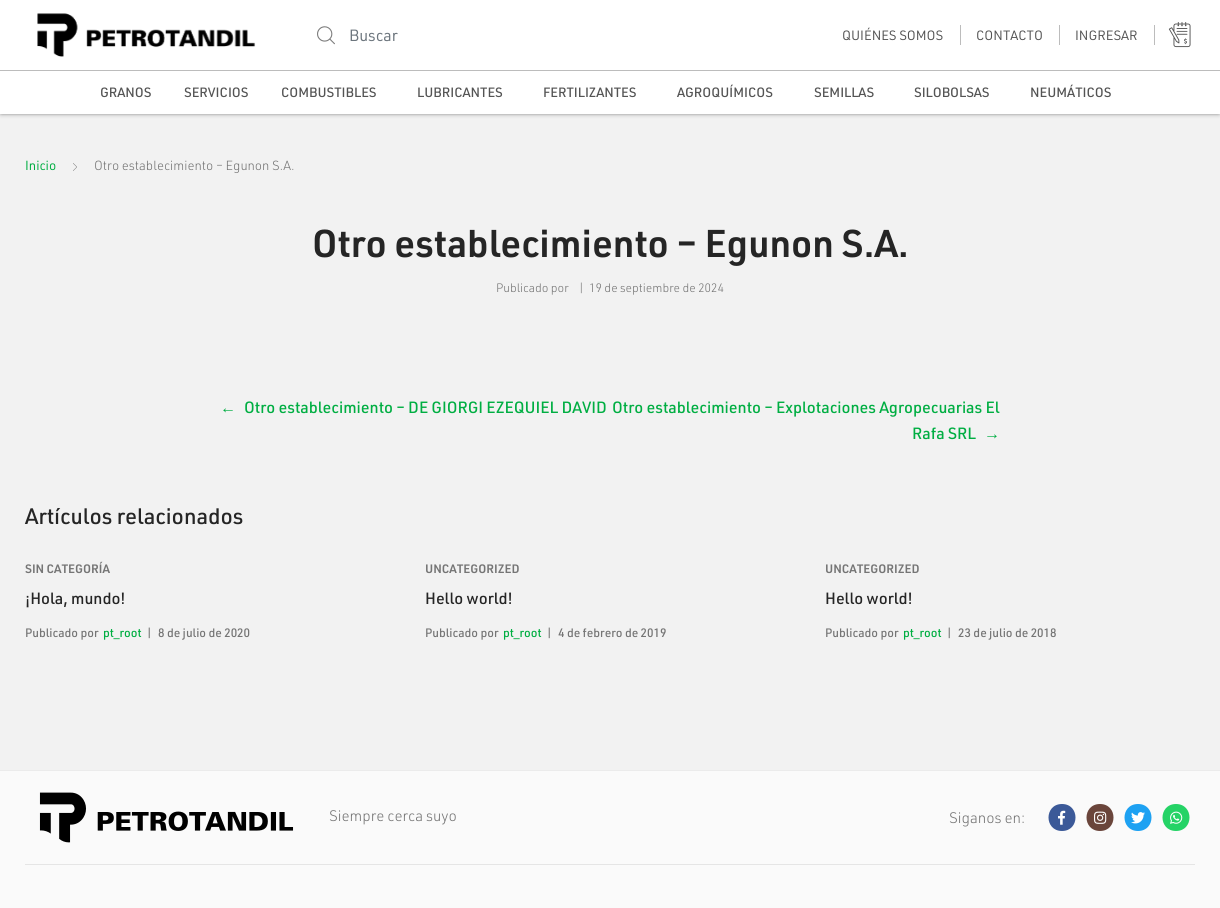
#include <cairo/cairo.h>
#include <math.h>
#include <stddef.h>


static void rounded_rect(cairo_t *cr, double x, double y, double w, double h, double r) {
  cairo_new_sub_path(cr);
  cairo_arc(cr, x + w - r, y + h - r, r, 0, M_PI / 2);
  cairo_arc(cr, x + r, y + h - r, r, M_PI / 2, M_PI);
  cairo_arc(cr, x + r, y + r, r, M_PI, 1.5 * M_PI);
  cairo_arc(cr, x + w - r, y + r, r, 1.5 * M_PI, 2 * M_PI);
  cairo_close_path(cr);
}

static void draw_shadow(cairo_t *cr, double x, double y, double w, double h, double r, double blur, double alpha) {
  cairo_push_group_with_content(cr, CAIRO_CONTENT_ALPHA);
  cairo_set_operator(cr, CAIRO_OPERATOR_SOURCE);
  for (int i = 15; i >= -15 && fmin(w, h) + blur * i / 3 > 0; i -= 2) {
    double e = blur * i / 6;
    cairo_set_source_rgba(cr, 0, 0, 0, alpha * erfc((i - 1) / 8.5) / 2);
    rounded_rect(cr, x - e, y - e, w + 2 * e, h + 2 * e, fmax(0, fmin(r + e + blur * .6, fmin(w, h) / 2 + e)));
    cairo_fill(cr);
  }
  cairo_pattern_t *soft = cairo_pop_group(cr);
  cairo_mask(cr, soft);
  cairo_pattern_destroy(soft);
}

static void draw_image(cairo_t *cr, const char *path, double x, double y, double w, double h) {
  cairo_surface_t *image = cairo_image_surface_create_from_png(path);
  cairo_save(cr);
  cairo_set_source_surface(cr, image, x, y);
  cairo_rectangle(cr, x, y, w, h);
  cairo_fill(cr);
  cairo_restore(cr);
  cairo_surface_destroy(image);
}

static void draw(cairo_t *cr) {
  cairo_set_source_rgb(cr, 242 / 255.0, 242 / 255.0, 242 / 255.0);
  cairo_paint(cr);
  cairo_set_source_rgb(cr, 0, 0, 0);
  draw_shadow(cr, 1, 1, 1218, 112, 0, 2.5, 0.66);
  cairo_set_source_rgb(cr, 1, 1, 1);
  cairo_rectangle(cr, 0, 0, 1220, 70);
  cairo_fill(cr);
  cairo_set_source_rgb(cr, 188 / 255.0, 188 / 255.0, 188 / 255.0);
  cairo_rectangle(cr, 0, 70, 1220, 1);
  cairo_fill(cr);
  draw_image(cr, "images/1.png", 37, 13, 219, 44);
  draw_image(cr, "images/2.png", 317, 26, 18, 19);
  cairo_rectangle(cr, 960, 25, 1, 20);
  cairo_fill(cr);
  cairo_rectangle(cr, 1059, 25, 1, 20);
  cairo_fill(cr);
  cairo_rectangle(cr, 1154, 25, 1, 20);
  cairo_fill(cr);
  draw_image(cr, "images/3.png", 1168, 22, 23, 26);
  cairo_set_source_rgb(cr, 1, 1, 1);
  cairo_rectangle(cr, 0, 71, 1220, 43);
  cairo_fill(cr);
  draw_image(cr, "images/4.png", 73, 163, 4, 8);
  cairo_set_source_rgb(cr, 250 / 255.0, 250 / 255.0, 250 / 255.0);
  cairo_rectangle(cr, 0, 771, 1220, 137);
  cairo_fill(cr);
  cairo_set_source_rgb(cr, 235 / 255.0, 235 / 255.0, 235 / 255.0);
  cairo_rectangle(cr, 0, 770, 1220, 1);
  cairo_fill(cr);
  draw_image(cr, "images/5.png", 39, 792, 255, 51);
  cairo_set_source_rgb(cr, 59 / 255.0, 89 / 255.0, 152 / 255.0);
  cairo_new_path(cr);
  cairo_move_to(cr, 1062, 804);
  cairo_curve_to(cr, 1044, 804, 1044, 831, 1062, 831);
  cairo_curve_to(cr, 1080, 831, 1080, 804, 1062, 804);
  cairo_close_path(cr);
  cairo_fill(cr);
  draw_image(cr, "images/6.png", 1058, 810, 8, 15);
  cairo_set_source_rgb(cr, 106 / 255.0, 69 / 255.0, 59 / 255.0);
  cairo_new_path(cr);
  cairo_move_to(cr, 1100, 804);
  cairo_curve_to(cr, 1082, 804, 1082, 831, 1100, 831);
  cairo_curve_to(cr, 1118, 831, 1118, 804, 1100, 804);
  cairo_close_path(cr);
  cairo_fill(cr);
  draw_image(cr, "images/7.png", 1094, 811, 13, 13);
  cairo_set_source_rgb(cr, 29 / 255.0, 161 / 255.0, 242 / 255.0);
  cairo_new_path(cr);
  cairo_move_to(cr, 1138, 804);
  cairo_curve_to(cr, 1120, 804, 1120, 831, 1138, 831);
  cairo_curve_to(cr, 1156, 831, 1156, 804, 1138, 804);
  cairo_close_path(cr);
  cairo_fill(cr);
  draw_image(cr, "images/8.png", 1131, 812, 14, 12);
  cairo_set_source_rgb(cr, 37 / 255.0, 211 / 255.0, 102 / 255.0);
  cairo_new_path(cr);
  cairo_move_to(cr, 1176, 804);
  cairo_curve_to(cr, 1158, 804, 1158, 831, 1176, 831);
  cairo_curve_to(cr, 1194, 831, 1194, 804, 1176, 804);
  cairo_close_path(cr);
  cairo_fill(cr);
  draw_image(cr, "images/9.png", 1170, 811, 13, 13);
  cairo_set_source_rgb(cr, 229 / 255.0, 229 / 255.0, 229 / 255.0);
  cairo_rectangle(cr, 25, 864, 1170, 1);
  cairo_fill(cr);
  cairo_select_font_face(cr, "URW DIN", CAIRO_FONT_SLANT_NORMAL, CAIRO_FONT_WEIGHT_NORMAL);
  cairo_set_font_size(cr, 16);
  cairo_set_source_rgb(cr, 108 / 255.0, 117 / 255.0, 125 / 255.0);
  cairo_move_to(cr, 349, 41);
  cairo_show_text(cr, "Buscar");
  cairo_set_font_size(cr, 13.25);
  cairo_set_source_rgb(cr, 84 / 255.0, 84 / 255.0, 84 / 255.0);
  cairo_move_to(cr, 842, 40);
  cairo_show_text(cr, "QUIÉNES SOMOS");
  cairo_move_to(cr, 976, 40);
  cairo_show_text(cr, "CONTACTO");
  cairo_move_to(cr, 1075, 40);
  cairo_show_text(cr, "INGRESAR");
  cairo_select_font_face(cr, "URW DIN Medium", CAIRO_FONT_SLANT_NORMAL, CAIRO_FONT_WEIGHT_NORMAL);
  cairo_move_to(cr, 100, 97);
  cairo_show_text(cr, "GRANOS");
  cairo_move_to(cr, 184, 97);
  cairo_show_text(cr, "SERVICIOS");
  cairo_move_to(cr, 281, 97);
  cairo_show_text(cr, "COMBUSTIBLES");
  cairo_move_to(cr, 417, 97);
  cairo_show_text(cr, "LUBRICANTES");
  cairo_move_to(cr, 543, 97);
  cairo_show_text(cr, "FERTILIZANTES");
  cairo_move_to(cr, 677, 97);
  cairo_show_text(cr, "AGROQUÍMICOS");
  cairo_move_to(cr, 814, 97);
  cairo_show_text(cr, "SEMILLAS");
  cairo_move_to(cr, 914, 97);
  cairo_show_text(cr, "SILOBOLSAS");
  cairo_move_to(cr, 1030, 97);
  cairo_show_text(cr, "NEUMÁTICOS");
  cairo_select_font_face(cr, "URW DIN", CAIRO_FONT_SLANT_NORMAL, CAIRO_FONT_WEIGHT_NORMAL);
  cairo_set_font_size(cr, 13);
  cairo_set_source_rgb(cr, 0, 174 / 255.0, 66 / 255.0);
  cairo_move_to(cr, 25, 170);
  cairo_show_text(cr, "Inicio");
  cairo_select_font_face(cr, "URW DIN Light", CAIRO_FONT_SLANT_NORMAL, CAIRO_FONT_WEIGHT_NORMAL);
  cairo_set_source_rgb(cr, 117 / 255.0, 117 / 255.0, 117 / 255.0);
  cairo_move_to(cr, 94, 170);
  cairo_show_text(cr, "Otro establecimiento – Egunon S.A.");
  cairo_select_font_face(cr, "URW DIN SemiBold", CAIRO_FONT_SLANT_NORMAL, CAIRO_FONT_WEIGHT_NORMAL);
  cairo_set_font_size(cr, 38);
  cairo_set_source_rgb(cr, 37 / 255.0, 37 / 255.0, 37 / 255.0);
  cairo_move_to(cr, 312, 257);
  cairo_show_text(cr, "Otro establecimiento – Egunon S.A.");
  cairo_select_font_face(cr, "URW DIN Light", CAIRO_FONT_SLANT_NORMAL, CAIRO_FONT_WEIGHT_NORMAL);
  cairo_set_font_size(cr, 12);
  cairo_set_source_rgb(cr, 117 / 255.0, 117 / 255.0, 117 / 255.0);
  cairo_move_to(cr, 496, 292);
  cairo_show_text(cr, "Publicado por");
  cairo_move_to(cr, 578, 292);
  cairo_show_text(cr, "|");
  cairo_move_to(cr, 589, 292);
  cairo_show_text(cr, "19 de septiembre de 2024");
  cairo_select_font_face(cr, "Liberation Serif", CAIRO_FONT_SLANT_NORMAL, CAIRO_FONT_WEIGHT_NORMAL);
  cairo_set_font_size(cr, 16);
  cairo_set_source_rgb(cr, 0, 174 / 255.0, 66 / 255.0);
  cairo_move_to(cr, 220, 413);
  cairo_show_text(cr, "←");
  cairo_select_font_face(cr, "URW DIN Medium", CAIRO_FONT_SLANT_NORMAL, CAIRO_FONT_WEIGHT_NORMAL);
  cairo_move_to(cr, 244, 413);
  cairo_show_text(cr, "Otro establecimiento – DE GIORGI EZEQUIEL DAVID");
  cairo_move_to(cr, 612, 413);
  cairo_show_text(cr, "Otro establecimiento – Explotaciones Agropecuarias El");
  cairo_move_to(cr, 912, 439);
  cairo_show_text(cr, "Rafa SRL");
  cairo_select_font_face(cr, "Liberation Serif", CAIRO_FONT_SLANT_NORMAL, CAIRO_FONT_WEIGHT_NORMAL);
  cairo_move_to(cr, 984, 439);
  cairo_show_text(cr, "→");
  cairo_select_font_face(cr, "URW DIN Medium", CAIRO_FONT_SLANT_NORMAL, CAIRO_FONT_WEIGHT_NORMAL);
  cairo_set_font_size(cr, 22);
  cairo_set_source_rgb(cr, 37 / 255.0, 37 / 255.0, 37 / 255.0);
  cairo_move_to(cr, 25, 524);
  cairo_show_text(cr, "Artículos relacionados");
  cairo_select_font_face(cr, "URW DIN SemiBold", CAIRO_FONT_SLANT_NORMAL, CAIRO_FONT_WEIGHT_NORMAL);
  cairo_set_font_size(cr, 12);
  cairo_set_source_rgb(cr, 117 / 255.0, 117 / 255.0, 117 / 255.0);
  cairo_move_to(cr, 25, 573);
  cairo_show_text(cr, "SIN CATEGORÍA");
  cairo_select_font_face(cr, "URW DIN Medium", CAIRO_FONT_SLANT_NORMAL, CAIRO_FONT_WEIGHT_NORMAL);
  cairo_set_font_size(cr, 16);
  cairo_set_source_rgb(cr, 37 / 255.0, 37 / 255.0, 37 / 255.0);
  cairo_move_to(cr, 25, 604);
  cairo_show_text(cr, "¡Hola, mundo!");
  cairo_set_font_size(cr, 12);
  cairo_set_source_rgb(cr, 117 / 255.0, 117 / 255.0, 117 / 255.0);
  cairo_move_to(cr, 25, 637);
  cairo_show_text(cr, "Publicado por");
  cairo_set_source_rgb(cr, 0, 174 / 255.0, 66 / 255.0);
  cairo_move_to(cr, 103, 637);
  cairo_show_text(cr, "pt_root");
  cairo_set_source_rgb(cr, 117 / 255.0, 117 / 255.0, 117 / 255.0);
  cairo_move_to(cr, 146, 637);
  cairo_show_text(cr, "|");
  cairo_move_to(cr, 158, 637);
  cairo_show_text(cr, "8 de julio de 2020");
  cairo_select_font_face(cr, "URW DIN SemiBold", CAIRO_FONT_SLANT_NORMAL, CAIRO_FONT_WEIGHT_NORMAL);
  cairo_move_to(cr, 425, 573);
  cairo_show_text(cr, "UNCATEGORIZED");
  cairo_select_font_face(cr, "URW DIN Medium", CAIRO_FONT_SLANT_NORMAL, CAIRO_FONT_WEIGHT_NORMAL);
  cairo_set_font_size(cr, 16);
  cairo_set_source_rgb(cr, 37 / 255.0, 37 / 255.0, 37 / 255.0);
  cairo_move_to(cr, 425, 604);
  cairo_show_text(cr, "Hello world!");
  cairo_set_font_size(cr, 12);
  cairo_set_source_rgb(cr, 117 / 255.0, 117 / 255.0, 117 / 255.0);
  cairo_move_to(cr, 425, 637);
  cairo_show_text(cr, "Publicado por");
  cairo_set_source_rgb(cr, 0, 174 / 255.0, 66 / 255.0);
  cairo_move_to(cr, 503, 637);
  cairo_show_text(cr, "pt_root");
  cairo_set_source_rgb(cr, 117 / 255.0, 117 / 255.0, 117 / 255.0);
  cairo_move_to(cr, 546, 637);
  cairo_show_text(cr, "|");
  cairo_move_to(cr, 558, 637);
  cairo_show_text(cr, "4 de febrero de 2019");
  cairo_select_font_face(cr, "URW DIN SemiBold", CAIRO_FONT_SLANT_NORMAL, CAIRO_FONT_WEIGHT_NORMAL);
  cairo_move_to(cr, 825, 573);
  cairo_show_text(cr, "UNCATEGORIZED");
  cairo_select_font_face(cr, "URW DIN Medium", CAIRO_FONT_SLANT_NORMAL, CAIRO_FONT_WEIGHT_NORMAL);
  cairo_set_font_size(cr, 16);
  cairo_set_source_rgb(cr, 37 / 255.0, 37 / 255.0, 37 / 255.0);
  cairo_move_to(cr, 825, 604);
  cairo_show_text(cr, "Hello world!");
  cairo_set_font_size(cr, 12);
  cairo_set_source_rgb(cr, 117 / 255.0, 117 / 255.0, 117 / 255.0);
  cairo_move_to(cr, 825, 637);
  cairo_show_text(cr, "Publicado por");
  cairo_set_source_rgb(cr, 0, 174 / 255.0, 66 / 255.0);
  cairo_move_to(cr, 903, 637);
  cairo_show_text(cr, "pt_root");
  cairo_set_source_rgb(cr, 117 / 255.0, 117 / 255.0, 117 / 255.0);
  cairo_move_to(cr, 946, 637);
  cairo_show_text(cr, "|");
  cairo_move_to(cr, 958, 637);
  cairo_show_text(cr, "23 de julio de 2018");
  cairo_select_font_face(cr, "URW DIN Light", CAIRO_FONT_SLANT_NORMAL, CAIRO_FONT_WEIGHT_NORMAL);
  cairo_set_font_size(cr, 15);
  cairo_move_to(cr, 329, 821);
  cairo_show_text(cr, "Siempre cerca suyo");
  cairo_move_to(cr, 949, 823);
  cairo_show_text(cr, "Siganos en:");
}

int main(void) {
  cairo_surface_t *surface = cairo_image_surface_create(CAIRO_FORMAT_RGB24, 1220, 908);
  cairo_t *cr = cairo_create(surface);
  cairo_font_options_t *options = cairo_font_options_create();
  cairo_font_options_set_hint_metrics(options, CAIRO_HINT_METRICS_OFF);
  cairo_font_options_set_hint_style(options, CAIRO_HINT_STYLE_NONE);
  cairo_set_font_options(cr, options);
  cairo_set_miter_limit(cr, 4);
  draw(cr);
  cairo_surface_write_to_png(surface, "out.png");
  cairo_font_options_destroy(options);
  cairo_destroy(cr);
  cairo_surface_destroy(surface);
  return 0;
}
